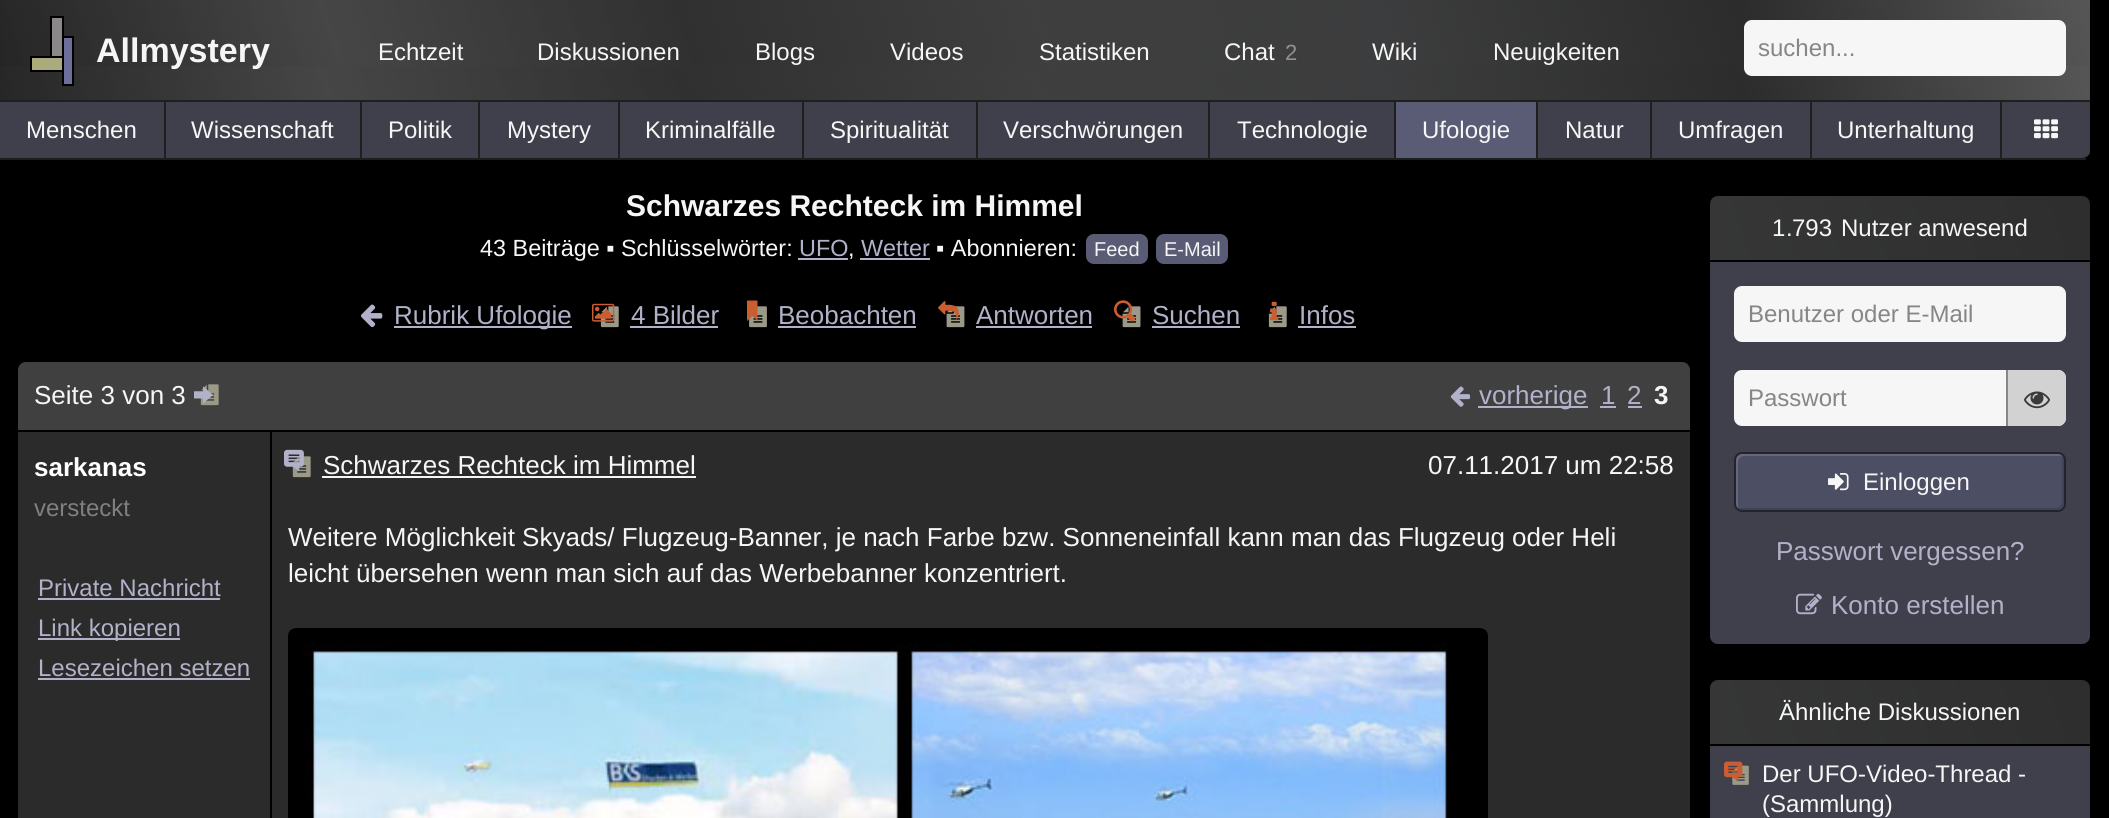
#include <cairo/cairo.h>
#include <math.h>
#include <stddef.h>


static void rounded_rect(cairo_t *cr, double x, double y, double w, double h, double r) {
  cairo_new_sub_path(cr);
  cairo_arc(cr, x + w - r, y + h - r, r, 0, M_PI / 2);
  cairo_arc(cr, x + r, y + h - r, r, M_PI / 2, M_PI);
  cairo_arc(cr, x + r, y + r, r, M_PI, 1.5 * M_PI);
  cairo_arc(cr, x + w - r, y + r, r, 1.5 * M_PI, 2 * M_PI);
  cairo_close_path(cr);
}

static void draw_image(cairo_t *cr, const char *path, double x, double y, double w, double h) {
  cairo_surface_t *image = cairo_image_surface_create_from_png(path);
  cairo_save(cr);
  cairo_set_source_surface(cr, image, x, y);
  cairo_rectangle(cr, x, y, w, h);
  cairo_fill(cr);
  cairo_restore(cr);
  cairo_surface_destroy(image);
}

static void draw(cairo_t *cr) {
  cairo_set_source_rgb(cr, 0, 0, 0);
  cairo_paint(cr);
  draw_image(cr, "images/1.png", 0, 0, 2090, 100);
  draw_image(cr, "images/2.png", 30, 16, 44, 70);
  cairo_set_source_rgb(cr, 246 / 255.0, 246 / 255.0, 246 / 255.0);
  rounded_rect(cr, 1744, 20, 322, 56, 8);
  cairo_fill(cr);
  cairo_set_source_rgb(cr, 64 / 255.0, 64 / 255.0, 76 / 255.0);
  cairo_rectangle(cr, 0, 102, 164, 56);
  cairo_fill(cr);
  cairo_set_source_rgb(cr, 31 / 255.0, 31 / 255.0, 31 / 255.0);
  cairo_rectangle(cr, 0, 100, 2090, 2);
  cairo_fill(cr);
  cairo_rectangle(cr, 0, 158, 2086, 2);
  cairo_fill(cr);
  cairo_set_source_rgb(cr, 64 / 255.0, 64 / 255.0, 76 / 255.0);
  cairo_rectangle(cr, 166, 102, 194, 56);
  cairo_fill(cr);
  cairo_set_source_rgb(cr, 31 / 255.0, 31 / 255.0, 31 / 255.0);
  cairo_rectangle(cr, 164, 100, 2, 60);
  cairo_fill(cr);
  cairo_set_source_rgb(cr, 64 / 255.0, 64 / 255.0, 76 / 255.0);
  cairo_rectangle(cr, 362, 102, 116, 56);
  cairo_fill(cr);
  cairo_set_source_rgb(cr, 31 / 255.0, 31 / 255.0, 31 / 255.0);
  cairo_rectangle(cr, 360, 100, 2, 60);
  cairo_fill(cr);
  cairo_set_source_rgb(cr, 64 / 255.0, 64 / 255.0, 76 / 255.0);
  cairo_rectangle(cr, 480, 102, 138, 56);
  cairo_fill(cr);
  cairo_set_source_rgb(cr, 31 / 255.0, 31 / 255.0, 31 / 255.0);
  cairo_rectangle(cr, 478, 100, 2, 60);
  cairo_fill(cr);
  cairo_set_source_rgb(cr, 64 / 255.0, 64 / 255.0, 76 / 255.0);
  cairo_rectangle(cr, 620, 102, 182, 56);
  cairo_fill(cr);
  cairo_set_source_rgb(cr, 31 / 255.0, 31 / 255.0, 31 / 255.0);
  cairo_rectangle(cr, 618, 100, 2, 60);
  cairo_fill(cr);
  cairo_set_source_rgb(cr, 64 / 255.0, 64 / 255.0, 76 / 255.0);
  cairo_rectangle(cr, 804, 102, 172, 56);
  cairo_fill(cr);
  cairo_set_source_rgb(cr, 31 / 255.0, 31 / 255.0, 31 / 255.0);
  cairo_rectangle(cr, 802, 100, 2, 60);
  cairo_fill(cr);
  cairo_set_source_rgb(cr, 64 / 255.0, 64 / 255.0, 76 / 255.0);
  cairo_rectangle(cr, 978, 102, 230, 56);
  cairo_fill(cr);
  cairo_set_source_rgb(cr, 31 / 255.0, 31 / 255.0, 31 / 255.0);
  cairo_rectangle(cr, 976, 100, 2, 60);
  cairo_fill(cr);
  cairo_set_source_rgb(cr, 64 / 255.0, 64 / 255.0, 76 / 255.0);
  cairo_rectangle(cr, 1210, 102, 184, 56);
  cairo_fill(cr);
  cairo_set_source_rgb(cr, 31 / 255.0, 31 / 255.0, 31 / 255.0);
  cairo_rectangle(cr, 1208, 100, 2, 60);
  cairo_fill(cr);
  cairo_set_source_rgb(cr, 90 / 255.0, 92 / 255.0, 117 / 255.0);
  cairo_rectangle(cr, 1396, 102, 140, 56);
  cairo_fill(cr);
  cairo_set_source_rgb(cr, 31 / 255.0, 31 / 255.0, 31 / 255.0);
  cairo_rectangle(cr, 1394, 100, 2, 60);
  cairo_fill(cr);
  cairo_set_source_rgb(cr, 64 / 255.0, 64 / 255.0, 76 / 255.0);
  cairo_rectangle(cr, 1538, 102, 112, 56);
  cairo_fill(cr);
  cairo_set_source_rgb(cr, 31 / 255.0, 31 / 255.0, 31 / 255.0);
  cairo_rectangle(cr, 1536, 100, 2, 60);
  cairo_fill(cr);
  cairo_set_source_rgb(cr, 64 / 255.0, 64 / 255.0, 76 / 255.0);
  cairo_rectangle(cr, 1652, 102, 158, 56);
  cairo_fill(cr);
  cairo_set_source_rgb(cr, 31 / 255.0, 31 / 255.0, 31 / 255.0);
  cairo_rectangle(cr, 1650, 100, 2, 60);
  cairo_fill(cr);
  cairo_set_source_rgb(cr, 64 / 255.0, 64 / 255.0, 76 / 255.0);
  cairo_rectangle(cr, 1812, 102, 188, 56);
  cairo_fill(cr);
  cairo_set_source_rgb(cr, 31 / 255.0, 31 / 255.0, 31 / 255.0);
  cairo_rectangle(cr, 1810, 100, 2, 60);
  cairo_fill(cr);
  cairo_set_source_rgb(cr, 64 / 255.0, 64 / 255.0, 76 / 255.0);
  cairo_new_path(cr);
  cairo_move_to(cr, 2002, 102);
  cairo_line_to(cr, 2090, 102);
  cairo_line_to(cr, 2090, 152);
  cairo_curve_to(cr, 2090, 155, 2086, 158, 2082, 158);
  cairo_line_to(cr, 2002, 158);
  cairo_close_path(cr);
  cairo_fill(cr);
  cairo_set_source_rgb(cr, 31 / 255.0, 31 / 255.0, 31 / 255.0);
  cairo_rectangle(cr, 2000, 100, 2, 60);
  cairo_fill(cr);
  draw_image(cr, "images/3.png", 2034, 119, 24, 20);
  cairo_set_source_rgb(cr, 177 / 255.0, 178 / 255.0, 201 / 255.0);
  cairo_rectangle(cr, 798, 258, 50, 2);
  cairo_fill(cr);
  cairo_rectangle(cr, 860, 258, 70, 2);
  cairo_fill(cr);
  cairo_set_source_rgb(cr, 90 / 255.0, 92 / 255.0, 117 / 255.0);
  rounded_rect(cr, 1086, 234, 62, 30, 8);
  cairo_fill(cr);
  rounded_rect(cr, 1156, 234, 72, 30, 8);
  cairo_fill(cr);
  draw_image(cr, "images/4.png", 361, 304, 22, 24);
  cairo_set_source_rgb(cr, 177 / 255.0, 178 / 255.0, 201 / 255.0);
  cairo_rectangle(cr, 394, 326, 178, 2);
  cairo_fill(cr);
  draw_image(cr, "images/6.png", 600, 306, 19, 22);
  draw_image(cr, "images/5.png", 592, 303, 23, 19);
  cairo_rectangle(cr, 630, 326, 88, 2);
  cairo_fill(cr);
  draw_image(cr, "images/7.png", 749, 306, 18, 22);
  cairo_set_source_rgb(cr, 202 / 255.0, 94 / 255.0, 50 / 255.0);
  cairo_new_path(cr);
  cairo_move_to(cr, 747, 300.5);
  cairo_line_to(cr, 747, 321);
  cairo_line_to(cr, 752.5, 316);
  cairo_line_to(cr, 757.5, 321);
  cairo_line_to(cr, 757.5, 300.5);
  cairo_close_path(cr);
  cairo_fill(cr);
  cairo_set_source_rgb(cr, 177 / 255.0, 178 / 255.0, 201 / 255.0);
  cairo_rectangle(cr, 778, 326, 138, 2);
  cairo_fill(cr);
  draw_image(cr, "images/9.png", 946, 306, 19, 22);
  draw_image(cr, "images/8.png", 938, 301, 21, 19);
  cairo_rectangle(cr, 976, 326, 116, 2);
  cairo_fill(cr);
  draw_image(cr, "images/11.png", 1122, 306, 19, 22);
  draw_image(cr, "images/10.png", 1114, 300, 22, 22);
  cairo_rectangle(cr, 1152, 326, 88, 2);
  cairo_fill(cr);
  draw_image(cr, "images/6.png", 1268, 306, 19, 22);
  draw_image(cr, "images/12.png", 1270, 301, 9, 20);
  cairo_rectangle(cr, 1298, 326, 58, 2);
  cairo_fill(cr);
  cairo_set_source_rgb(cr, 64 / 255.0, 64 / 255.0, 64 / 255.0);
  cairo_new_path(cr);
  cairo_move_to(cr, 26, 362);
  cairo_line_to(cr, 1682, 362);
  cairo_curve_to(cr, 1686.5, 362, 1690, 365.5, 1690, 370);
  cairo_line_to(cr, 1690, 430);
  cairo_line_to(cr, 18, 430);
  cairo_line_to(cr, 18, 370);
  cairo_curve_to(cr, 18, 365.5, 21.5, 362, 26, 362);
  cairo_close_path(cr);
  cairo_fill(cr);
  draw_image(cr, "images/13.png", 200, 384, 19, 22);
  draw_image(cr, "images/14.png", 194, 386, 19, 18);
  draw_image(cr, "images/15.png", 1450, 386, 21, 21);
  cairo_set_source_rgb(cr, 177 / 255.0, 178 / 255.0, 201 / 255.0);
  cairo_rectangle(cr, 1478, 406, 110, 2);
  cairo_fill(cr);
  cairo_rectangle(cr, 1600, 406, 16, 2);
  cairo_fill(cr);
  cairo_rectangle(cr, 1628, 406, 14, 2);
  cairo_fill(cr);
  cairo_set_source_rgb(cr, 43 / 255.0, 43 / 255.0, 43 / 255.0);
  cairo_rectangle(cr, 18, 432, 1672, 386);
  cairo_fill(cr);
  cairo_set_source_rgb(cr, 0, 0, 0);
  cairo_rectangle(cr, 270, 432, 2, 386);
  cairo_fill(cr);
  cairo_set_source_rgb(cr, 177 / 255.0, 178 / 255.0, 201 / 255.0);
  cairo_rectangle(cr, 38, 598, 182, 2);
  cairo_fill(cr);
  cairo_rectangle(cr, 38, 638, 142, 2);
  cairo_fill(cr);
  cairo_rectangle(cr, 38, 678, 212, 2);
  cairo_fill(cr);
  draw_image(cr, "images/17.png", 292, 456, 19, 22);
  draw_image(cr, "images/16.png", 284, 449, 20, 23);
  cairo_set_source_rgb(cr, 246 / 255.0, 246 / 255.0, 246 / 255.0);
  cairo_rectangle(cr, 322, 476, 374, 2);
  cairo_fill(cr);
  draw_image(cr, "images/18.png", 288, 628, 1200, 190);
  draw_image(cr, "images/19.png", 1710, 196, 380, 64);
  cairo_set_source_rgb(cr, 64 / 255.0, 64 / 255.0, 76 / 255.0);
  cairo_new_path(cr);
  cairo_move_to(cr, 1710, 262);
  cairo_line_to(cr, 2090, 262);
  cairo_line_to(cr, 2090, 636);
  cairo_curve_to(cr, 2090, 640.5, 2086.5, 644, 2082, 644);
  cairo_line_to(cr, 1718, 644);
  cairo_curve_to(cr, 1713.5, 644, 1710, 640.5, 1710, 636);
  cairo_close_path(cr);
  cairo_fill(cr);
  cairo_set_source_rgb(cr, 246 / 255.0, 246 / 255.0, 246 / 255.0);
  rounded_rect(cr, 1734, 286, 332, 56, 8);
  cairo_fill(cr);
  rounded_rect(cr, 1734, 370, 332, 56, 8);
  cairo_fill(cr);
  cairo_set_source_rgb(cr, 210 / 255.0, 210 / 255.0, 210 / 255.0);
  cairo_new_path(cr);
  cairo_move_to(cr, 2006, 370);
  cairo_line_to(cr, 2058, 370);
  cairo_curve_to(cr, 2062.5, 370, 2066, 373.5, 2066, 378);
  cairo_line_to(cr, 2066, 418);
  cairo_curve_to(cr, 2066, 422.5, 2062.5, 426, 2058, 426);
  cairo_line_to(cr, 2006, 426);
  cairo_close_path(cr);
  cairo_fill(cr);
  cairo_set_source_rgb(cr, 134 / 255.0, 134 / 255.0, 134 / 255.0);
  cairo_rectangle(cr, 2006, 370, 2, 56);
  cairo_fill(cr);
  draw_image(cr, "images/20.png", 2024, 391, 26, 18);
  cairo_set_source_rgb(cr, 76 / 255.0, 78 / 255.0, 99 / 255.0);
  rounded_rect(cr, 1734, 452, 332, 60, 8);
  cairo_fill(cr);
  cairo_set_source_rgb(cr, 65 / 255.0, 66 / 255.0, 84 / 255.0);
  cairo_new_path(cr);
  cairo_move_to(cr, 1737, 507);
  cairo_curve_to(cr, 1738, 508, 1739, 508, 1740, 508);
  cairo_line_to(cr, 2056, 508);
  cairo_curve_to(cr, 2059, 508, 2062, 505, 2062, 502);
  cairo_line_to(cr, 2062, 458);
  cairo_curve_to(cr, 2062, 457, 2062, 456, 2061, 455);
  cairo_curve_to(cr, 2063, 456, 2064, 458, 2064, 460);
  cairo_line_to(cr, 2064, 504);
  cairo_curve_to(cr, 2064, 507, 2061, 510, 2058, 510);
  cairo_line_to(cr, 1742, 510);
  cairo_curve_to(cr, 1740, 510, 1738, 509, 1737, 507);
  cairo_close_path(cr);
  cairo_fill(cr);
  cairo_set_source_rgba(cr, 1, 1, 1, 0.15);
  cairo_new_path(cr);
  cairo_move_to(cr, 1744, 456);
  cairo_line_to(cr, 2060, 456);
  cairo_curve_to(cr, 2061, 456, 2062, 456, 2063, 457);
  cairo_curve_to(cr, 2062, 455, 2060, 454, 2058, 454);
  cairo_line_to(cr, 1742, 454);
  cairo_curve_to(cr, 1739, 454, 1736, 457, 1736, 460);
  cairo_line_to(cr, 1736, 504);
  cairo_curve_to(cr, 1736, 506, 1737, 508, 1739, 509);
  cairo_curve_to(cr, 1738, 508, 1738, 507, 1738, 506);
  cairo_line_to(cr, 1738, 462);
  cairo_curve_to(cr, 1738, 459, 1741, 456, 1744, 456);
  cairo_close_path(cr);
  cairo_fill(cr);
  rounded_rect(cr, 1735, 453, 330, 58, 7);
  cairo_set_source_rgba(cr, 0, 0, 0, 0.55);
  cairo_stroke(cr);
  draw_image(cr, "images/21.png", 1828, 473, 21, 18);
  draw_image(cr, "images/22.png", 1796, 593, 26, 22);
  draw_image(cr, "images/19.png", 1710, 680, 380, 64);
  cairo_set_source_rgb(cr, 64 / 255.0, 64 / 255.0, 76 / 255.0);
  cairo_rectangle(cr, 1710, 746, 380, 72);
  cairo_fill(cr);
  draw_image(cr, "images/24.png", 1732, 765, 17, 20);
  draw_image(cr, "images/23.png", 1724, 761, 19, 21);
  cairo_select_font_face(cr, "Liberation Sans", CAIRO_FONT_SLANT_NORMAL, CAIRO_FONT_WEIGHT_BOLD);
  cairo_set_font_size(cr, 34);
  cairo_set_source_rgb(cr, 246 / 255.0, 246 / 255.0, 246 / 255.0);
  cairo_move_to(cr, 96, 62);
  cairo_show_text(cr, "Allmystery");
  cairo_select_font_face(cr, "Liberation Sans", CAIRO_FONT_SLANT_NORMAL, CAIRO_FONT_WEIGHT_NORMAL);
  cairo_set_font_size(cr, 24);
  cairo_move_to(cr, 378, 60);
  cairo_show_text(cr, "Echtzeit");
  cairo_move_to(cr, 537, 60);
  cairo_show_text(cr, "Diskussionen");
  cairo_move_to(cr, 755, 60);
  cairo_show_text(cr, "Blogs");
  cairo_move_to(cr, 890, 60);
  cairo_show_text(cr, "Videos");
  cairo_move_to(cr, 1039, 60);
  cairo_show_text(cr, "Statistiken");
  cairo_move_to(cr, 1224, 60);
  cairo_show_text(cr, "Chat");
  cairo_set_font_size(cr, 22);
  cairo_set_source_rgb(cr, 145 / 255.0, 145 / 255.0, 145 / 255.0);
  cairo_move_to(cr, 1285, 60);
  cairo_show_text(cr, "2");
  cairo_set_font_size(cr, 24);
  cairo_set_source_rgb(cr, 246 / 255.0, 246 / 255.0, 246 / 255.0);
  cairo_move_to(cr, 1372, 60);
  cairo_show_text(cr, "Wiki");
  cairo_move_to(cr, 1493, 60);
  cairo_show_text(cr, "Neuigkeiten");
  cairo_set_source_rgb(cr, 134 / 255.0, 134 / 255.0, 134 / 255.0);
  cairo_move_to(cr, 1758, 56);
  cairo_show_text(cr, "suchen...");
  cairo_set_source_rgb(cr, 246 / 255.0, 246 / 255.0, 246 / 255.0);
  cairo_move_to(cr, 26, 138);
  cairo_show_text(cr, "Menschen");
  cairo_move_to(cr, 191, 138);
  cairo_show_text(cr, "Wissenschaft");
  cairo_move_to(cr, 388, 138);
  cairo_show_text(cr, "Politik");
  cairo_move_to(cr, 507, 138);
  cairo_show_text(cr, "Mystery");
  cairo_move_to(cr, 645, 138);
  cairo_show_text(cr, "Kriminalfälle");
  cairo_move_to(cr, 830, 138);
  cairo_show_text(cr, "Spiritualität");
  cairo_move_to(cr, 1003, 138);
  cairo_show_text(cr, "Verschwörungen");
  cairo_move_to(cr, 1237, 138);
  cairo_show_text(cr, "Technologie");
  cairo_move_to(cr, 1422, 138);
  cairo_show_text(cr, "Ufologie");
  cairo_move_to(cr, 1565, 138);
  cairo_show_text(cr, "Natur");
  cairo_move_to(cr, 1678, 138);
  cairo_show_text(cr, "Umfragen");
  cairo_move_to(cr, 1837, 138);
  cairo_show_text(cr, "Unterhaltung");
  cairo_select_font_face(cr, "Liberation Sans", CAIRO_FONT_SLANT_NORMAL, CAIRO_FONT_WEIGHT_BOLD);
  cairo_set_font_size(cr, 30);
  cairo_move_to(cr, 626, 216);
  cairo_show_text(cr, "Schwarzes Rechteck im Himmel");
  cairo_select_font_face(cr, "Liberation Sans", CAIRO_FONT_SLANT_NORMAL, CAIRO_FONT_WEIGHT_NORMAL);
  cairo_set_font_size(cr, 23.4);
  cairo_move_to(cr, 480, 256);
  cairo_show_text(cr, "43 Beiträge ▪ Schlüsselwörter:");
  cairo_set_source_rgb(cr, 177 / 255.0, 178 / 255.0, 201 / 255.0);
  cairo_move_to(cr, 799, 256);
  cairo_show_text(cr, "UFO");
  cairo_set_source_rgb(cr, 246 / 255.0, 246 / 255.0, 246 / 255.0);
  cairo_move_to(cr, 848, 256);
  cairo_show_text(cr, ",");
  cairo_set_source_rgb(cr, 177 / 255.0, 178 / 255.0, 201 / 255.0);
  cairo_move_to(cr, 861, 256);
  cairo_show_text(cr, "Wetter");
  cairo_set_source_rgb(cr, 246 / 255.0, 246 / 255.0, 246 / 255.0);
  cairo_move_to(cr, 936, 256);
  cairo_show_text(cr, "▪ Abonnieren:");
  cairo_set_font_size(cr, 20);
  cairo_move_to(cr, 1094, 256);
  cairo_show_text(cr, "Feed");
  cairo_move_to(cr, 1164, 256);
  cairo_show_text(cr, "E-Mail");
  cairo_set_font_size(cr, 26);
  cairo_set_source_rgb(cr, 177 / 255.0, 178 / 255.0, 201 / 255.0);
  cairo_move_to(cr, 394, 324);
  cairo_show_text(cr, "Rubrik Ufologie");
  cairo_move_to(cr, 631, 324);
  cairo_show_text(cr, "4 Bilder");
  cairo_move_to(cr, 778, 324);
  cairo_show_text(cr, "Beobachten");
  cairo_move_to(cr, 976, 324);
  cairo_show_text(cr, "Antworten");
  cairo_move_to(cr, 1152, 324);
  cairo_show_text(cr, "Suchen");
  cairo_move_to(cr, 1299, 324);
  cairo_show_text(cr, "Infos");
  cairo_set_source_rgb(cr, 246 / 255.0, 246 / 255.0, 246 / 255.0);
  cairo_move_to(cr, 34, 404);
  cairo_show_text(cr, "Seite 3 von 3");
  cairo_set_source_rgb(cr, 177 / 255.0, 178 / 255.0, 201 / 255.0);
  cairo_move_to(cr, 1479, 404);
  cairo_show_text(cr, "vorherige");
  cairo_move_to(cr, 1601, 404);
  cairo_show_text(cr, "1");
  cairo_move_to(cr, 1627, 404);
  cairo_show_text(cr, "2");
  cairo_select_font_face(cr, "Liberation Sans", CAIRO_FONT_SLANT_NORMAL, CAIRO_FONT_WEIGHT_BOLD);
  cairo_set_source_rgb(cr, 246 / 255.0, 246 / 255.0, 246 / 255.0);
  cairo_move_to(cr, 1654, 404);
  cairo_show_text(cr, "3");
  cairo_set_source_rgb(cr, 1, 1, 1);
  cairo_move_to(cr, 34, 476);
  cairo_show_text(cr, "sarkanas");
  cairo_select_font_face(cr, "Liberation Sans", CAIRO_FONT_SLANT_NORMAL, CAIRO_FONT_WEIGHT_NORMAL);
  cairo_set_font_size(cr, 24);
  cairo_set_source_rgb(cr, 128 / 255.0, 128 / 255.0, 128 / 255.0);
  cairo_move_to(cr, 34, 516);
  cairo_show_text(cr, "versteckt");
  cairo_set_source_rgb(cr, 177 / 255.0, 178 / 255.0, 201 / 255.0);
  cairo_move_to(cr, 38, 596);
  cairo_show_text(cr, "Private Nachricht");
  cairo_move_to(cr, 38, 636);
  cairo_show_text(cr, "Link kopieren");
  cairo_move_to(cr, 38, 676);
  cairo_show_text(cr, "Lesezeichen setzen");
  cairo_set_font_size(cr, 26);
  cairo_set_source_rgb(cr, 246 / 255.0, 246 / 255.0, 246 / 255.0);
  cairo_move_to(cr, 323, 474);
  cairo_show_text(cr, "Schwarzes Rechteck im Himmel");
  cairo_move_to(cr, 1428, 474);
  cairo_show_text(cr, "07.11.2017 um 22:58");
  cairo_move_to(cr, 288, 546);
  cairo_show_text(cr, "Weitere Möglichkeit Skyads/ Flugzeug-Banner, je nach Farbe bzw. Sonneneinfall kann man das Flugzeug oder Heli");
  cairo_move_to(cr, 288, 582);
  cairo_show_text(cr, "leicht übersehen wenn man sich auf das Werbebanner konzentriert.");
  cairo_set_font_size(cr, 24);
  cairo_move_to(cr, 1786, 236);
  cairo_show_text(cr, ".");
  cairo_move_to(cr, 1772, 236);
  cairo_show_text(cr, "1 793");
  cairo_move_to(cr, 1841, 236);
  cairo_show_text(cr, "Nutzer anwesend");
  cairo_set_source_rgb(cr, 134 / 255.0, 134 / 255.0, 134 / 255.0);
  cairo_move_to(cr, 1748, 322);
  cairo_show_text(cr, "Benutzer oder E-Mail");
  cairo_move_to(cr, 1748, 406);
  cairo_show_text(cr, "Passwort");
  cairo_set_source_rgb(cr, 246 / 255.0, 246 / 255.0, 246 / 255.0);
  cairo_move_to(cr, 1863, 490);
  cairo_show_text(cr, "Einloggen");
  cairo_set_font_size(cr, 26);
  cairo_set_source_rgb(cr, 177 / 255.0, 178 / 255.0, 201 / 255.0);
  cairo_move_to(cr, 1776, 560);
  cairo_show_text(cr, "Passwort vergessen?");
  cairo_move_to(cr, 1831, 614);
  cairo_show_text(cr, "Konto erstellen");
  cairo_set_font_size(cr, 24);
  cairo_set_source_rgb(cr, 246 / 255.0, 246 / 255.0, 246 / 255.0);
  cairo_move_to(cr, 1779, 720);
  cairo_show_text(cr, "Ähnliche Diskussionen");
  cairo_move_to(cr, 1762, 782);
  cairo_show_text(cr, "Der UFO-Video-Thread -");
  cairo_move_to(cr, 1762, 812);
  cairo_show_text(cr, "(Sammlung)");
}

int main(void) {
  cairo_surface_t *surface = cairo_image_surface_create(CAIRO_FORMAT_RGB24, 2109, 818);
  cairo_t *cr = cairo_create(surface);
  cairo_font_options_t *options = cairo_font_options_create();
  cairo_font_options_set_hint_metrics(options, CAIRO_HINT_METRICS_OFF);
  cairo_font_options_set_hint_style(options, CAIRO_HINT_STYLE_NONE);
  cairo_set_font_options(cr, options);
  cairo_set_miter_limit(cr, 4);
  draw(cr);
  cairo_surface_write_to_png(surface, "out.png");
  cairo_font_options_destroy(options);
  cairo_destroy(cr);
  cairo_surface_destroy(surface);
  return 0;
}
